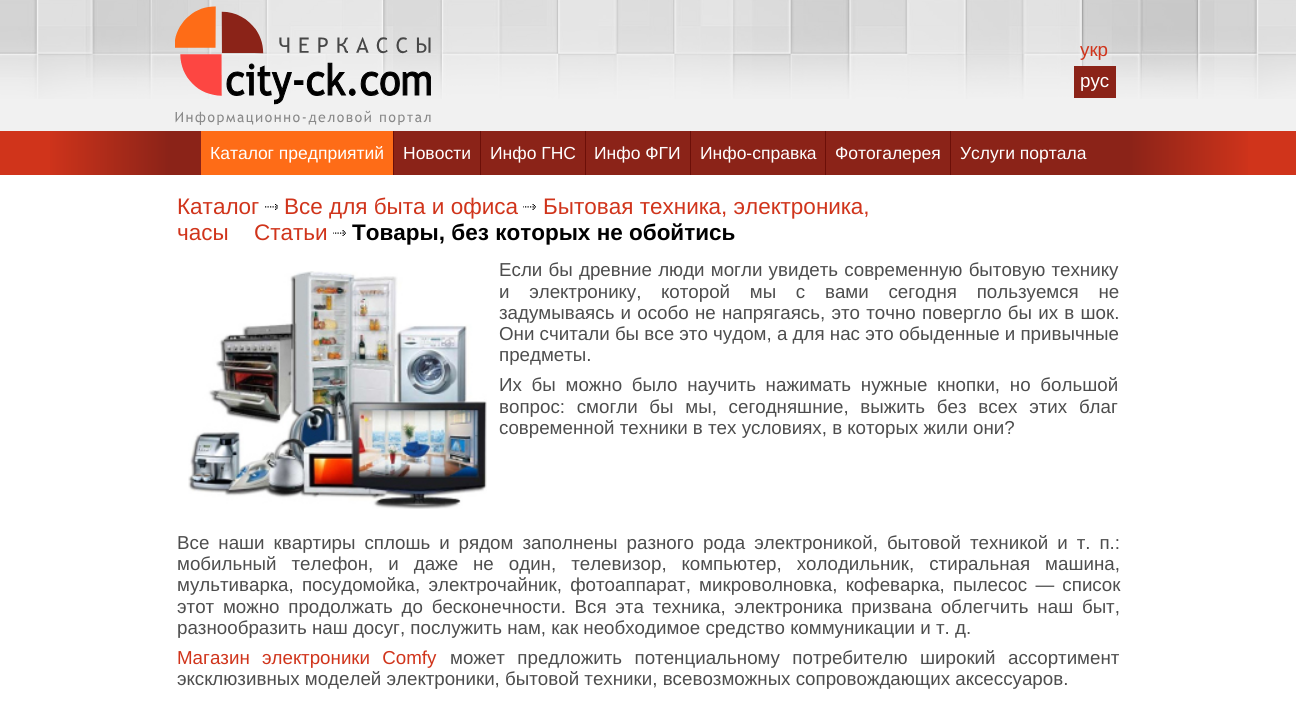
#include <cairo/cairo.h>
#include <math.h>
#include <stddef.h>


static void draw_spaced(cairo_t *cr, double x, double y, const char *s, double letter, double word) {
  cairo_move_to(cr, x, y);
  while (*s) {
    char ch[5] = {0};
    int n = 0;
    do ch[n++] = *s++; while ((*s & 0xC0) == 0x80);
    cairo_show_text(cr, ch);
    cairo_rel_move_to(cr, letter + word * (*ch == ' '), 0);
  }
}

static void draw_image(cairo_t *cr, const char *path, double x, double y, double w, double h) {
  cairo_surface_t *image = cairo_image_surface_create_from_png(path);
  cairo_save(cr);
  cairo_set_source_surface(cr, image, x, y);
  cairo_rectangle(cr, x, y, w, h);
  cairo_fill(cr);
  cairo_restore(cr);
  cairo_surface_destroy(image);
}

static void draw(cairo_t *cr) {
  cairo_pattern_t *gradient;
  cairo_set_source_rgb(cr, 1, 1, 1);
  cairo_paint(cr);
  cairo_set_source_rgb(cr, 241 / 255.0, 241 / 255.0, 241 / 255.0);
  cairo_rectangle(cr, 0, 99, 1296, 32);
  cairo_fill(cr);
  draw_image(cr, "images/1.png", 0, 0, 1296, 99);
  draw_image(cr, "images/2.png", 175, 6, 256, 119);
  cairo_set_source_rgb(cr, 139 / 255.0, 35 / 255.0, 24 / 255.0);
  cairo_rectangle(cr, 1074, 66, 42, 32);
  cairo_fill(cr);
  cairo_set_source_rgb(cr, 208 / 255.0, 52 / 255.0, 27 / 255.0);
  cairo_rectangle(cr, 0, 131, 1296, 44);
  cairo_fill(cr);
  cairo_set_source_rgb(cr, 139 / 255.0, 35 / 255.0, 24 / 255.0);
  cairo_rectangle(cr, 169, 131, 960, 44);
  cairo_fill(cr);
  gradient = cairo_pattern_create_linear(44, 153, 169, 153);
  cairo_pattern_add_color_stop_rgba(gradient, 0.01, 208 / 255.0, 52 / 255.0, 27 / 255.0, 1);
  cairo_pattern_add_color_stop_rgba(gradient, 1, 139 / 255.0, 35 / 255.0, 24 / 255.0, 1);
  cairo_set_source(cr, gradient);
  cairo_pattern_destroy(gradient);
  cairo_rectangle(cr, 50, 131, 119, 44);
  cairo_fill(cr);
  cairo_set_source_rgb(cr, 108 / 255.0, 15 / 255.0, 8 / 255.0);
  cairo_rectangle(cr, 393, 131, 1, 44);
  cairo_fill(cr);
  cairo_set_source_rgb(cr, 254 / 255.0, 108 / 255.0, 23 / 255.0);
  cairo_rectangle(cr, 201, 131, 192, 44);
  cairo_fill(cr);
  cairo_set_source_rgb(cr, 108 / 255.0, 15 / 255.0, 8 / 255.0);
  cairo_rectangle(cr, 480, 131, 1, 44);
  cairo_fill(cr);
  cairo_rectangle(cr, 585, 131, 1, 44);
  cairo_fill(cr);
  cairo_rectangle(cr, 690, 131, 1, 44);
  cairo_fill(cr);
  cairo_rectangle(cr, 825, 131, 1, 44);
  cairo_fill(cr);
  cairo_rectangle(cr, 950, 131, 1, 44);
  cairo_fill(cr);
  gradient = cairo_pattern_create_linear(1129, 153, 1254, 153);
  cairo_pattern_add_color_stop_rgba(gradient, 0, 139 / 255.0, 35 / 255.0, 24 / 255.0, 1);
  cairo_pattern_add_color_stop_rgba(gradient, 0.99, 208 / 255.0, 52 / 255.0, 27 / 255.0, 1);
  cairo_set_source(cr, gradient);
  cairo_pattern_destroy(gradient);
  cairo_rectangle(cr, 1129, 131, 119, 44);
  cairo_fill(cr);
  draw_image(cr, "images/3.png", 265, 204, 13, 6);
  draw_image(cr, "images/4.png", 523, 204, 13, 6);
  draw_image(cr, "images/5.png", 333, 230, 13, 6);
  draw_image(cr, "images/6.png", 188, 271, 299, 238);
  cairo_select_font_face(cr, "Liberation Sans", CAIRO_FONT_SLANT_NORMAL, CAIRO_FONT_WEIGHT_NORMAL);
  cairo_set_font_size(cr, 18.75);
  cairo_set_source_rgb(cr, 208 / 255.0, 52 / 255.0, 27 / 255.0);
  cairo_move_to(cr, 1080, 56);
  cairo_show_text(cr, "укр");
  cairo_set_source_rgb(cr, 1, 1, 1);
  cairo_move_to(cr, 1080, 87);
  cairo_show_text(cr, "рус");
  cairo_set_font_size(cr, 17.5);
  cairo_move_to(cr, 210, 159);
  cairo_show_text(cr, "Каталог предприятий");
  cairo_move_to(cr, 403, 159);
  cairo_show_text(cr, "Новости");
  cairo_move_to(cr, 490, 159);
  cairo_show_text(cr, "Инфо ГНС");
  cairo_move_to(cr, 594, 159);
  cairo_show_text(cr, "Инфо ФГИ");
  cairo_move_to(cr, 700, 159);
  cairo_show_text(cr, "Инфо-справка");
  cairo_move_to(cr, 835, 159);
  cairo_show_text(cr, "Фотогалерея");
  cairo_move_to(cr, 960, 159);
  cairo_show_text(cr, "Услуги портала");
  cairo_set_font_size(cr, 22.5);
  cairo_set_source_rgb(cr, 208 / 255.0, 52 / 255.0, 27 / 255.0);
  cairo_move_to(cr, 177, 214);
  cairo_show_text(cr, "Каталог");
  cairo_move_to(cr, 284, 214);
  cairo_show_text(cr, "Все для быта и офиса");
  cairo_move_to(cr, 543, 214);
  cairo_show_text(cr, "Бытовая техника, электроника,");
  cairo_move_to(cr, 177, 240);
  cairo_show_text(cr, "часы");
  cairo_move_to(cr, 254, 240);
  cairo_show_text(cr, "Статьи");
  cairo_select_font_face(cr, "Liberation Sans", CAIRO_FONT_SLANT_NORMAL, CAIRO_FONT_WEIGHT_BOLD);
  cairo_set_source_rgb(cr, 0, 0, 0);
  cairo_move_to(cr, 352, 240);
  cairo_show_text(cr, "Товары, без которых не обойтись");
  cairo_select_font_face(cr, "Liberation Sans", CAIRO_FONT_SLANT_NORMAL, CAIRO_FONT_WEIGHT_NORMAL);
  cairo_set_font_size(cr, 18.75);
  cairo_set_source_rgb(cr, 77 / 255.0, 77 / 255.0, 77 / 255.0);
  draw_spaced(cr, 499, 276, "Если бы древние люди могли увидеть современную бытовую технику", 0, 1);
  draw_spaced(cr, 499, 298, "и электронику, которой мы с вами сегодня пользуемся не", 0, 14.5);
  draw_spaced(cr, 499, 319, "задумываясь и особо не напрягаясь, это точно повергло бы их в шок.", 0, 1);
  cairo_move_to(cr, 499, 340);
  cairo_show_text(cr, "Они считали бы все это чудом, а для нас это обыденные и привычные");
  cairo_move_to(cr, 499, 361);
  cairo_show_text(cr, "предметы.");
  draw_spaced(cr, 499, 391, "Их бы можно было научить нажимать нужные кнопки, но большой", 0, 4.5);
  draw_spaced(cr, 499, 413, "вопрос: смогли бы мы, сегодняшние, выжить без всех этих благ", 0, 6.5);
  cairo_move_to(cr, 499, 434);
  cairo_show_text(cr, "современной техники в тех условиях, в которых жили они?");
  draw_spaced(cr, 177, 549, "Все наши квартиры сплошь и рядом заполнены разного рода электроникой, бытовой техникой и т. п.:", 0, 3.75);
  draw_spaced(cr, 177, 570, "мобильный телефон, и даже не один, телевизор, компьютер, холодильник, стиральная машина,", 0, 9.75);
  draw_spaced(cr, 177, 591, "мультиварка, посудомойка, электрочайник, фотоаппарат, микроволновка, кофеварка, пылесос — список", 0, 3);
  draw_spaced(cr, 177, 613, "этот можно продолжать до бесконечности. Вся эта техника, электроника призвана облегчить наш быт,", 0, 3.5);
  cairo_move_to(cr, 177, 634);
  cairo_show_text(cr, "разнообразить наш досуг, послужить нам, как необходимое средство коммуникации и т. д.");
  cairo_set_source_rgb(cr, 208 / 255.0, 52 / 255.0, 27 / 255.0);
  draw_spaced(cr, 177, 664, "Магазин электроники Comfy", 0, 7);
  cairo_set_source_rgb(cr, 77 / 255.0, 77 / 255.0, 77 / 255.0);
  draw_spaced(cr, 450, 664, "может предложить потенциальному потребителю широкий ассортимент", 0, 7.25);
  cairo_move_to(cr, 177, 685);
  cairo_show_text(cr, "эксклюзивных моделей электроники, бытовой техники, всевозможных сопровождающих аксессуаров.");
}

int main(void) {
  cairo_surface_t *surface = cairo_image_surface_create(CAIRO_FORMAT_RGB24, 1296, 710);
  cairo_t *cr = cairo_create(surface);
  cairo_font_options_t *options = cairo_font_options_create();
  cairo_font_options_set_hint_metrics(options, CAIRO_HINT_METRICS_OFF);
  cairo_font_options_set_hint_style(options, CAIRO_HINT_STYLE_NONE);
  cairo_set_font_options(cr, options);
  cairo_set_miter_limit(cr, 4);
  draw(cr);
  cairo_surface_write_to_png(surface, "out.png");
  cairo_font_options_destroy(options);
  cairo_destroy(cr);
  cairo_surface_destroy(surface);
  return 0;
}
